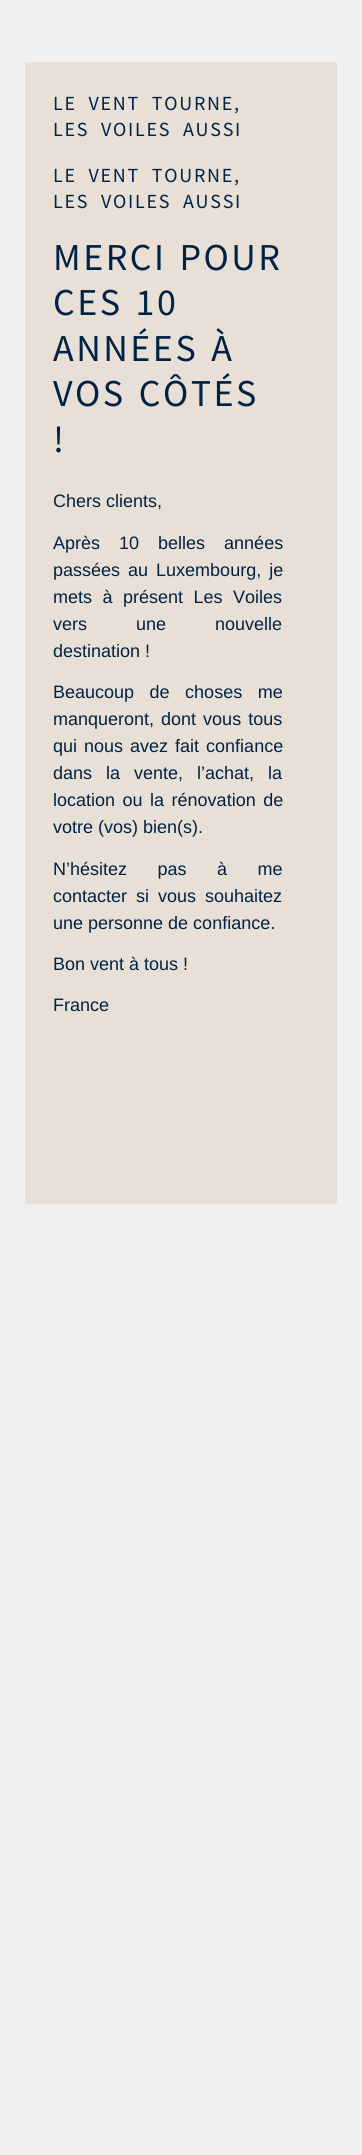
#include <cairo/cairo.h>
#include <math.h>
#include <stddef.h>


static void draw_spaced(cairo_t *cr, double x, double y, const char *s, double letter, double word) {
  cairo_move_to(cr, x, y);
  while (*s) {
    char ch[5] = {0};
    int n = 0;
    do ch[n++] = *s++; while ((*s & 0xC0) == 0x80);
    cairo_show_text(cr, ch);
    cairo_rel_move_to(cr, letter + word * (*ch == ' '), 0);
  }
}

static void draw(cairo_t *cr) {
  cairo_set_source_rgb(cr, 240 / 255.0, 240 / 255.0, 240 / 255.0);
  cairo_paint(cr);
  cairo_set_source_rgb(cr, 232 / 255.0, 223 / 255.0, 214 / 255.0);
  cairo_rectangle(cr, 25, 62, 312, 1142);
  cairo_fill(cr);
  cairo_select_font_face(cr, "Source Sans Pro", CAIRO_FONT_SLANT_NORMAL, CAIRO_FONT_WEIGHT_NORMAL);
  cairo_set_font_size(cr, 20);
  cairo_set_source_rgb(cr, 0, 34 / 255.0, 68 / 255.0);
  draw_spaced(cr, 53, 110, "LE VENT TOURNE,", 1.75, 6);
  draw_spaced(cr, 53, 136, "LES VOILES AUSSI", 1.75, 6);
  draw_spaced(cr, 53, 182, "LE VENT TOURNE,", 1.75, 6);
  draw_spaced(cr, 53, 208, "LES VOILES AUSSI", 1.75, 6);
  cairo_set_font_size(cr, 38);
  draw_spaced(cr, 53, 270, "MERCI POUR", 2.5, 3);
  draw_spaced(cr, 53, 315, "CES 10", 2.5, 3);
  draw_spaced(cr, 53, 361, "ANNÉES À", 2.5, 3);
  draw_spaced(cr, 53, 406, "VOS CÔTÉS", 2.5, 3);
  draw_spaced(cr, 53, 452, "!", 2.5, 0);
  cairo_select_font_face(cr, "Liberation Sans", CAIRO_FONT_SLANT_NORMAL, CAIRO_FONT_WEIGHT_NORMAL);
  cairo_set_font_size(cr, 18);
  cairo_move_to(cr, 53, 507);
  cairo_show_text(cr, "Chers clients,");
  draw_spaced(cr, 53, 549, "Après 10 belles années", 0, 14);
  draw_spaced(cr, 53, 576, "passées au Luxembourg, je", 0, 3);
  draw_spaced(cr, 53, 603, "mets à présent Les Voiles", 0, 5.5);
  draw_spaced(cr, 53, 630, "vers une nouvelle", 0, 44);
  cairo_move_to(cr, 53, 657);
  cairo_show_text(cr, "destination !");
  draw_spaced(cr, 53, 698, "Beaucoup de choses me", 0, 10.5);
  draw_spaced(cr, 53, 725, "manqueront, dont vous tous", 0, 2);
  draw_spaced(cr, 53, 752, "qui nous avez fait confiance", 0, 2);
  draw_spaced(cr, 53, 779, "dans la vente, l’achat, la", 0, 9);
  draw_spaced(cr, 53, 806, "location ou la rénovation de", 0, 2.5);
  cairo_move_to(cr, 53, 833);
  cairo_show_text(cr, "votre (vos) bien(s).");
  draw_spaced(cr, 53, 875, "N’hésitez pas à me", 0, 25.5);
  draw_spaced(cr, 53, 902, "contacter si vous souhaitez", 0, 4);
  cairo_move_to(cr, 53, 929);
  cairo_show_text(cr, "une personne de confiance.");
  cairo_move_to(cr, 53, 970);
  cairo_show_text(cr, "Bon vent à tous !");
  cairo_move_to(cr, 53, 1011);
  cairo_show_text(cr, "France");
}

int main(void) {
  cairo_surface_t *surface = cairo_image_surface_create(CAIRO_FORMAT_RGB24, 362, 2155);
  cairo_t *cr = cairo_create(surface);
  cairo_font_options_t *options = cairo_font_options_create();
  cairo_font_options_set_hint_metrics(options, CAIRO_HINT_METRICS_OFF);
  cairo_font_options_set_hint_style(options, CAIRO_HINT_STYLE_NONE);
  cairo_set_font_options(cr, options);
  cairo_set_miter_limit(cr, 4);
  draw(cr);
  cairo_surface_write_to_png(surface, "out.png");
  cairo_font_options_destroy(options);
  cairo_destroy(cr);
  cairo_surface_destroy(surface);
  return 0;
}
